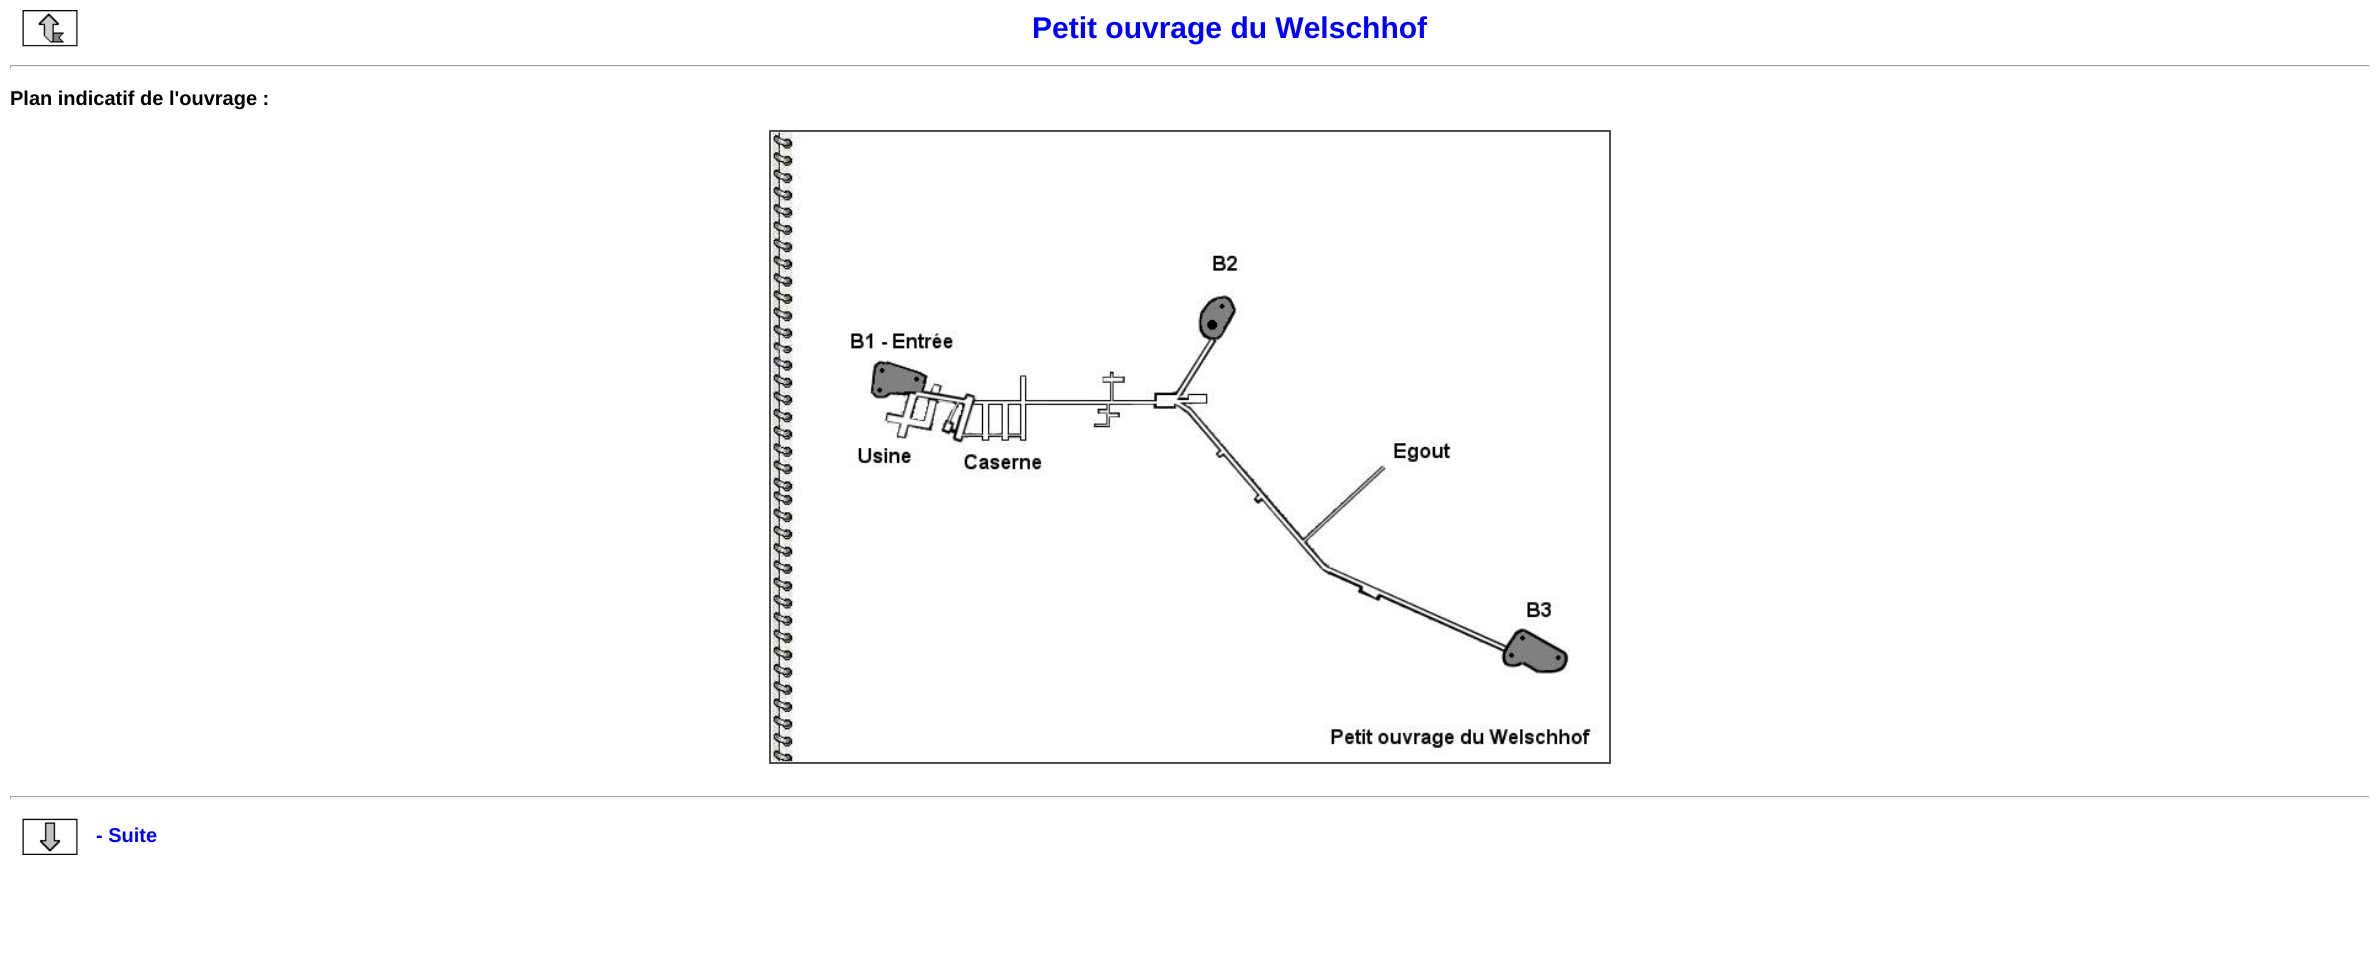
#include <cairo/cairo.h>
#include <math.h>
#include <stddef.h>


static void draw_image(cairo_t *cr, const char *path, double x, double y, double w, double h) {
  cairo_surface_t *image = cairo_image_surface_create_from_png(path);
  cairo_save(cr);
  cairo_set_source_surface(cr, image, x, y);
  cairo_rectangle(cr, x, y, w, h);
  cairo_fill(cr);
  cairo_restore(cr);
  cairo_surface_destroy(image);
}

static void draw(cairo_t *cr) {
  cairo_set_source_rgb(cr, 1, 1, 1);
  cairo_paint(cr);
  draw_image(cr, "images/1.png", 22, 10, 56, 37);
  cairo_set_source_rgb(cr, 159 / 255.0, 159 / 255.0, 159 / 255.0);
  cairo_rectangle(cr, 10, 65, 2360, 1);
  cairo_fill(cr);
  cairo_set_source_rgb(cr, 238 / 255.0, 238 / 255.0, 238 / 255.0);
  cairo_rectangle(cr, 2369, 65, 1, 3);
  cairo_fill(cr);
  cairo_rectangle(cr, 10, 66, 2360, 1);
  cairo_fill(cr);
  cairo_set_source_rgb(cr, 159 / 255.0, 159 / 255.0, 159 / 255.0);
  cairo_rectangle(cr, 10, 65, 1, 3);
  cairo_fill(cr);
  cairo_rectangle(cr, 769.5, 130.5, 841, 633);
  cairo_set_source_rgb(cr, 81 / 255.0, 77 / 255.0, 77 / 255.0);
  cairo_set_line_width(cr, 1);
  cairo_stroke(cr);
  cairo_rectangle(cr, 770.5, 131.5, 839, 631);
  cairo_stroke(cr);
  draw_image(cr, "images/2.png", 771, 132, 827, 630);
  cairo_set_source_rgb(cr, 159 / 255.0, 159 / 255.0, 159 / 255.0);
  cairo_rectangle(cr, 10, 796, 2360, 1);
  cairo_fill(cr);
  cairo_set_source_rgb(cr, 238 / 255.0, 238 / 255.0, 238 / 255.0);
  cairo_rectangle(cr, 2369, 796, 1, 3);
  cairo_fill(cr);
  cairo_rectangle(cr, 10, 798, 2360, 1);
  cairo_fill(cr);
  cairo_set_source_rgb(cr, 159 / 255.0, 159 / 255.0, 159 / 255.0);
  cairo_rectangle(cr, 10, 796, 1, 3);
  cairo_fill(cr);
  draw_image(cr, "images/3.png", 22, 818, 56, 37);
  cairo_select_font_face(cr, "Liberation Sans", CAIRO_FONT_SLANT_NORMAL, CAIRO_FONT_WEIGHT_BOLD);
  cairo_set_font_size(cr, 30);
  cairo_set_source_rgb(cr, 0, 0, 1);
  cairo_move_to(cr, 1032, 38);
  cairo_show_text(cr, "Petit ouvrage du Welschhof");
  cairo_set_font_size(cr, 20);
  cairo_set_source_rgb(cr, 0, 0, 0);
  cairo_move_to(cr, 10, 105);
  cairo_show_text(cr, "Plan indicatif de l'ouvrage :");
  cairo_set_source_rgb(cr, 0, 0, 1);
  cairo_move_to(cr, 96, 842);
  cairo_show_text(cr, "- Suite");
}

int main(void) {
  cairo_surface_t *surface = cairo_image_surface_create(CAIRO_FORMAT_RGB24, 2379, 961);
  cairo_t *cr = cairo_create(surface);
  cairo_font_options_t *options = cairo_font_options_create();
  cairo_font_options_set_hint_metrics(options, CAIRO_HINT_METRICS_OFF);
  cairo_font_options_set_hint_style(options, CAIRO_HINT_STYLE_NONE);
  cairo_set_font_options(cr, options);
  cairo_set_miter_limit(cr, 4);
  draw(cr);
  cairo_surface_write_to_png(surface, "out.png");
  cairo_font_options_destroy(options);
  cairo_destroy(cr);
  cairo_surface_destroy(surface);
  return 0;
}
